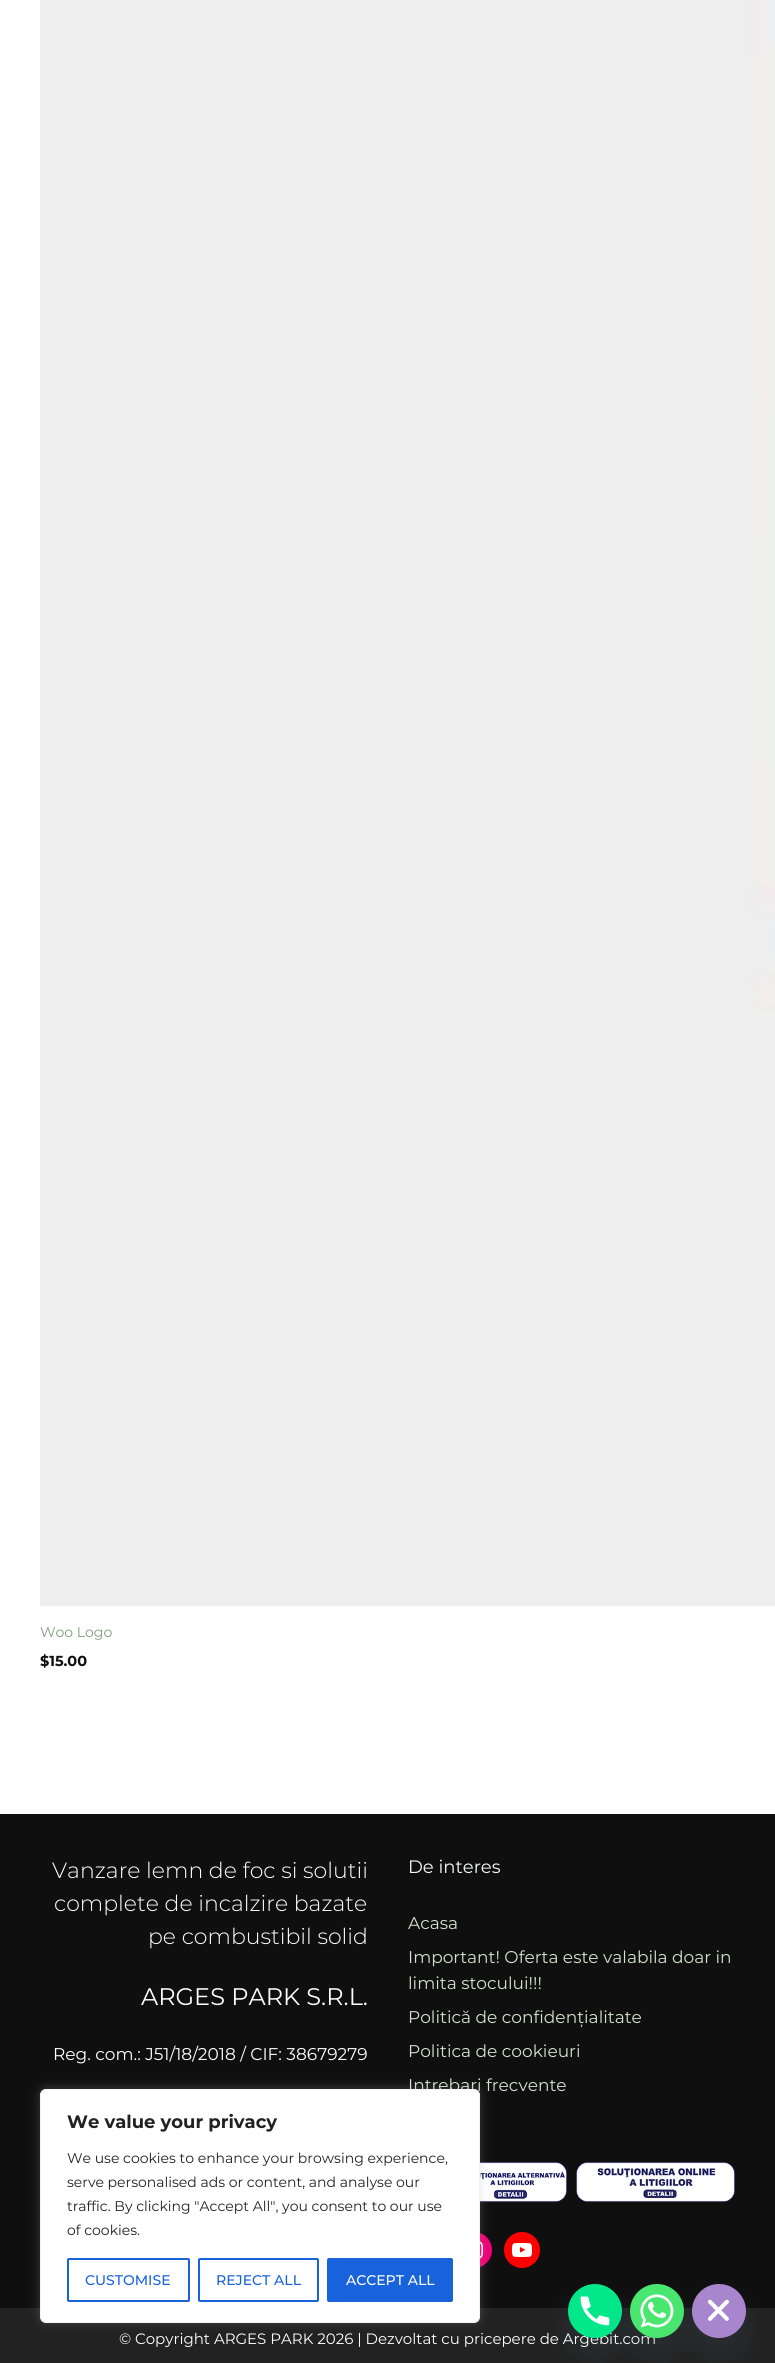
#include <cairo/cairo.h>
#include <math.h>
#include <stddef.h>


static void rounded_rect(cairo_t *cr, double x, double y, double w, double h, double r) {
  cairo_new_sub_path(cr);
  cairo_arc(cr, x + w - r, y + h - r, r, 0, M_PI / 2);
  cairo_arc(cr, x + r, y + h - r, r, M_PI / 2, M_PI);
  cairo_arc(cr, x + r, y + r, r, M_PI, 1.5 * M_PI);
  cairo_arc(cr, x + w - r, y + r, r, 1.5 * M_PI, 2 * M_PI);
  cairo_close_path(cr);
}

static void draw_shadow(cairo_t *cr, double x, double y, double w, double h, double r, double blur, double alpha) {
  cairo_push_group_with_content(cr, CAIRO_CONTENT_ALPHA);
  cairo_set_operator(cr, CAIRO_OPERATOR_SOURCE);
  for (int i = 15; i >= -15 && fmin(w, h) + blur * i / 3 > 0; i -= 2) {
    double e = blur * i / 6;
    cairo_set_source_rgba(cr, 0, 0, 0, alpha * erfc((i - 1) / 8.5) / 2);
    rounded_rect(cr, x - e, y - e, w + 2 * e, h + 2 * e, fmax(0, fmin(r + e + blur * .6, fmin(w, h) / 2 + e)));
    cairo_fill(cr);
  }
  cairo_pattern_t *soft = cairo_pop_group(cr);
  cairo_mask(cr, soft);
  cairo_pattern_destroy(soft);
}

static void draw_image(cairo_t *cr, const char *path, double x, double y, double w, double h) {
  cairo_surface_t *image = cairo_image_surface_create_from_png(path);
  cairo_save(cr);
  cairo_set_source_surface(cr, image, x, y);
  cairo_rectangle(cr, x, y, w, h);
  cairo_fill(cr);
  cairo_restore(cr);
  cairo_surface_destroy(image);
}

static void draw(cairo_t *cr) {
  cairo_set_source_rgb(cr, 1, 1, 1);
  cairo_paint(cr);
  draw_image(cr, "images/1.png", 40, 0, 735, 1606);
  cairo_set_source_rgb(cr, 15 / 255.0, 15 / 255.0, 15 / 255.0);
  cairo_rectangle(cr, 0, 1814, 775, 494);
  cairo_fill(cr);
  draw_image(cr, "images/2.png", 480, 2162, 87, 40);
  draw_image(cr, "images/3.png", 576, 2162, 159, 40);
  cairo_set_source_rgb(cr, 240 / 255.0, 0, 117 / 255.0);
  cairo_arc(cr, 474, 2250, 18, 0, 2 * M_PI);
  cairo_fill(cr);
  draw_image(cr, "images/4.png", 480, 2241, 3, 18);
  cairo_set_source_rgb(cr, 1, 0, 0);
  cairo_arc(cr, 522, 2250, 18, 0, 2 * M_PI);
  cairo_fill(cr);
  draw_image(cr, "images/5.png", 512, 2243, 20, 14);
  cairo_set_source_rgb(cr, 34 / 255.0, 34 / 255.0, 34 / 255.0);
  cairo_rectangle(cr, 0, 2308, 775, 55);
  cairo_fill(cr);
  cairo_set_source_rgb(cr, 172 / 255.0, 171 / 255.0, 171 / 255.0);
  draw_shadow(cr, 40, 2088, 440, 234, 6, 5, 0.3);
  cairo_set_source_rgb(cr, 73 / 255.0, 104 / 255.0, 126 / 255.0);
  draw_shadow(cr, 568, 2300, 54, 54, 27, 12, 0.16);
  cairo_select_font_face(cr, "Montserrat", CAIRO_FONT_SLANT_NORMAL, CAIRO_FONT_WEIGHT_NORMAL);
  cairo_set_font_size(cr, 14);
  cairo_set_source_rgb(cr, 129 / 255.0, 157 / 255.0, 125 / 255.0);
  cairo_move_to(cr, 40, 1637);
  cairo_show_text(cr, "Woo Logo");
  cairo_select_font_face(cr, "Montserrat", CAIRO_FONT_SLANT_NORMAL, CAIRO_FONT_WEIGHT_BOLD);
  cairo_set_font_size(cr, 14.5);
  cairo_set_source_rgb(cr, 15 / 255.0, 15 / 255.0, 15 / 255.0);
  cairo_move_to(cr, 40, 1666);
  cairo_show_text(cr, "$15.00");
  cairo_select_font_face(cr, "Montserrat Light", CAIRO_FONT_SLANT_NORMAL, CAIRO_FONT_WEIGHT_NORMAL);
  cairo_set_font_size(cr, 22);
  cairo_set_source_rgb(cr, 1, 1, 1);
  cairo_move_to(cr, 52, 1878);
  cairo_show_text(cr, "Vanzare lemn de foc si solutii");
  cairo_move_to(cr, 54, 1911);
  cairo_show_text(cr, "complete de incalzire bazate");
  cairo_move_to(cr, 148, 1944);
  cairo_show_text(cr, "pe combustibil solid");
  cairo_select_font_face(cr, "Montserrat", CAIRO_FONT_SLANT_NORMAL, CAIRO_FONT_WEIGHT_NORMAL);
  cairo_set_font_size(cr, 24);
  cairo_move_to(cr, 141, 2005);
  cairo_show_text(cr, "ARGES PARK S.R.L.");
  cairo_set_font_size(cr, 17);
  cairo_move_to(cr, 53, 2060);
  cairo_show_text(cr, "Reg. com.: J51/18/2018 / CIF: 38679279");
  cairo_set_font_size(cr, 18);
  cairo_set_source_rgb(cr, 247 / 255.0, 248 / 255.0, 249 / 255.0);
  cairo_move_to(cr, 408, 1873);
  cairo_show_text(cr, "De interes");
  cairo_set_font_size(cr, 17);
  cairo_set_source_rgb(cr, 209 / 255.0, 225 / 255.0, 204 / 255.0);
  cairo_move_to(cr, 408, 1929);
  cairo_show_text(cr, "Acasa");
  cairo_move_to(cr, 408, 1963);
  cairo_show_text(cr, "Important! Oferta este valabila doar in");
  cairo_move_to(cr, 408, 1989);
  cairo_show_text(cr, "limita stocului!!!");
  cairo_move_to(cr, 408, 2023);
  cairo_show_text(cr, "Politică de confidențialitate");
  cairo_move_to(cr, 408, 2057);
  cairo_show_text(cr, "Politica de cookieuri");
  cairo_move_to(cr, 408, 2091);
  cairo_show_text(cr, "Intrebari frecvente");
  cairo_set_font_size(cr, 15);
  cairo_set_source_rgb(cr, 1, 1, 1);
  cairo_move_to(cr, 119, 2344);
  cairo_show_text(cr, "© Copyright ARGES PARK 2026 | Dezvoltat cu pricepere de Argebit.com");
  rounded_rect(cr, 40.5, 2089.5, 439, 233, 5.5);
  cairo_fill_preserve(cr);
  cairo_set_source_rgb(cr, 244 / 255.0, 244 / 255.0, 244 / 255.0);
  cairo_set_line_width(cr, 1);
  cairo_stroke(cr);
  cairo_select_font_face(cr, "Montserrat", CAIRO_FONT_SLANT_NORMAL, CAIRO_FONT_WEIGHT_BOLD);
  cairo_set_font_size(cr, 18);
  cairo_set_source_rgb(cr, 33 / 255.0, 33 / 255.0, 33 / 255.0);
  cairo_move_to(cr, 67, 2128);
  cairo_show_text(cr, "We value your privacy");
  cairo_select_font_face(cr, "Montserrat", CAIRO_FONT_SLANT_NORMAL, CAIRO_FONT_WEIGHT_NORMAL);
  cairo_set_font_size(cr, 14);
  cairo_move_to(cr, 67, 2163);
  cairo_show_text(cr, "We use cookies to enhance your browsing experience,");
  cairo_move_to(cr, 67, 2187);
  cairo_show_text(cr, "serve personalised ads or content, and analyse our");
  cairo_move_to(cr, 67, 2211);
  cairo_show_text(cr, "traffic. By clicking \"Accept All\", you consent to our use");
  cairo_move_to(cr, 67, 2235);
  cairo_show_text(cr, "of cookies.");
  rounded_rect(cr, 68, 2259, 121, 42, 1);
  cairo_set_source_rgb(cr, 24 / 255.0, 99 / 255.0, 220 / 255.0);
  cairo_set_line_width(cr, 2);
  cairo_stroke(cr);
  cairo_select_font_face(cr, "Montserrat Medium", CAIRO_FONT_SLANT_NORMAL, CAIRO_FONT_WEIGHT_NORMAL);
  cairo_move_to(cr, 85, 2285);
  cairo_show_text(cr, "CUSTOMISE");
  rounded_rect(cr, 199, 2259, 119, 42, 1);
  cairo_stroke(cr);
  cairo_move_to(cr, 216, 2285);
  cairo_show_text(cr, "REJECT ALL");
  rounded_rect(cr, 328, 2259, 124, 42, 1);
  cairo_fill_preserve(cr);
  cairo_stroke(cr);
  cairo_set_source_rgb(cr, 1, 1, 1);
  cairo_move_to(cr, 346, 2285);
  cairo_show_text(cr, "ACCEPT ALL");
  draw_image(cr, "images/6.png", 568, 2284, 54, 54);
  cairo_set_source_rgb(cr, 73 / 255.0, 104 / 255.0, 126 / 255.0);
  draw_shadow(cr, 630, 2300, 54, 54, 27, 12, 0.16);
  draw_image(cr, "images/7.png", 630, 2284, 54, 54);
  draw_shadow(cr, 692, 2300, 54, 54, 27, 12, 0.16);
  draw_image(cr, "images/8.png", 692, 2284, 54, 54);
}

int main(void) {
  cairo_surface_t *surface = cairo_image_surface_create(CAIRO_FORMAT_RGB24, 775, 2363);
  cairo_t *cr = cairo_create(surface);
  cairo_font_options_t *options = cairo_font_options_create();
  cairo_font_options_set_hint_metrics(options, CAIRO_HINT_METRICS_OFF);
  cairo_font_options_set_hint_style(options, CAIRO_HINT_STYLE_NONE);
  cairo_set_font_options(cr, options);
  cairo_set_miter_limit(cr, 4);
  draw(cr);
  cairo_surface_write_to_png(surface, "out.png");
  cairo_font_options_destroy(options);
  cairo_destroy(cr);
  cairo_surface_destroy(surface);
  return 0;
}
